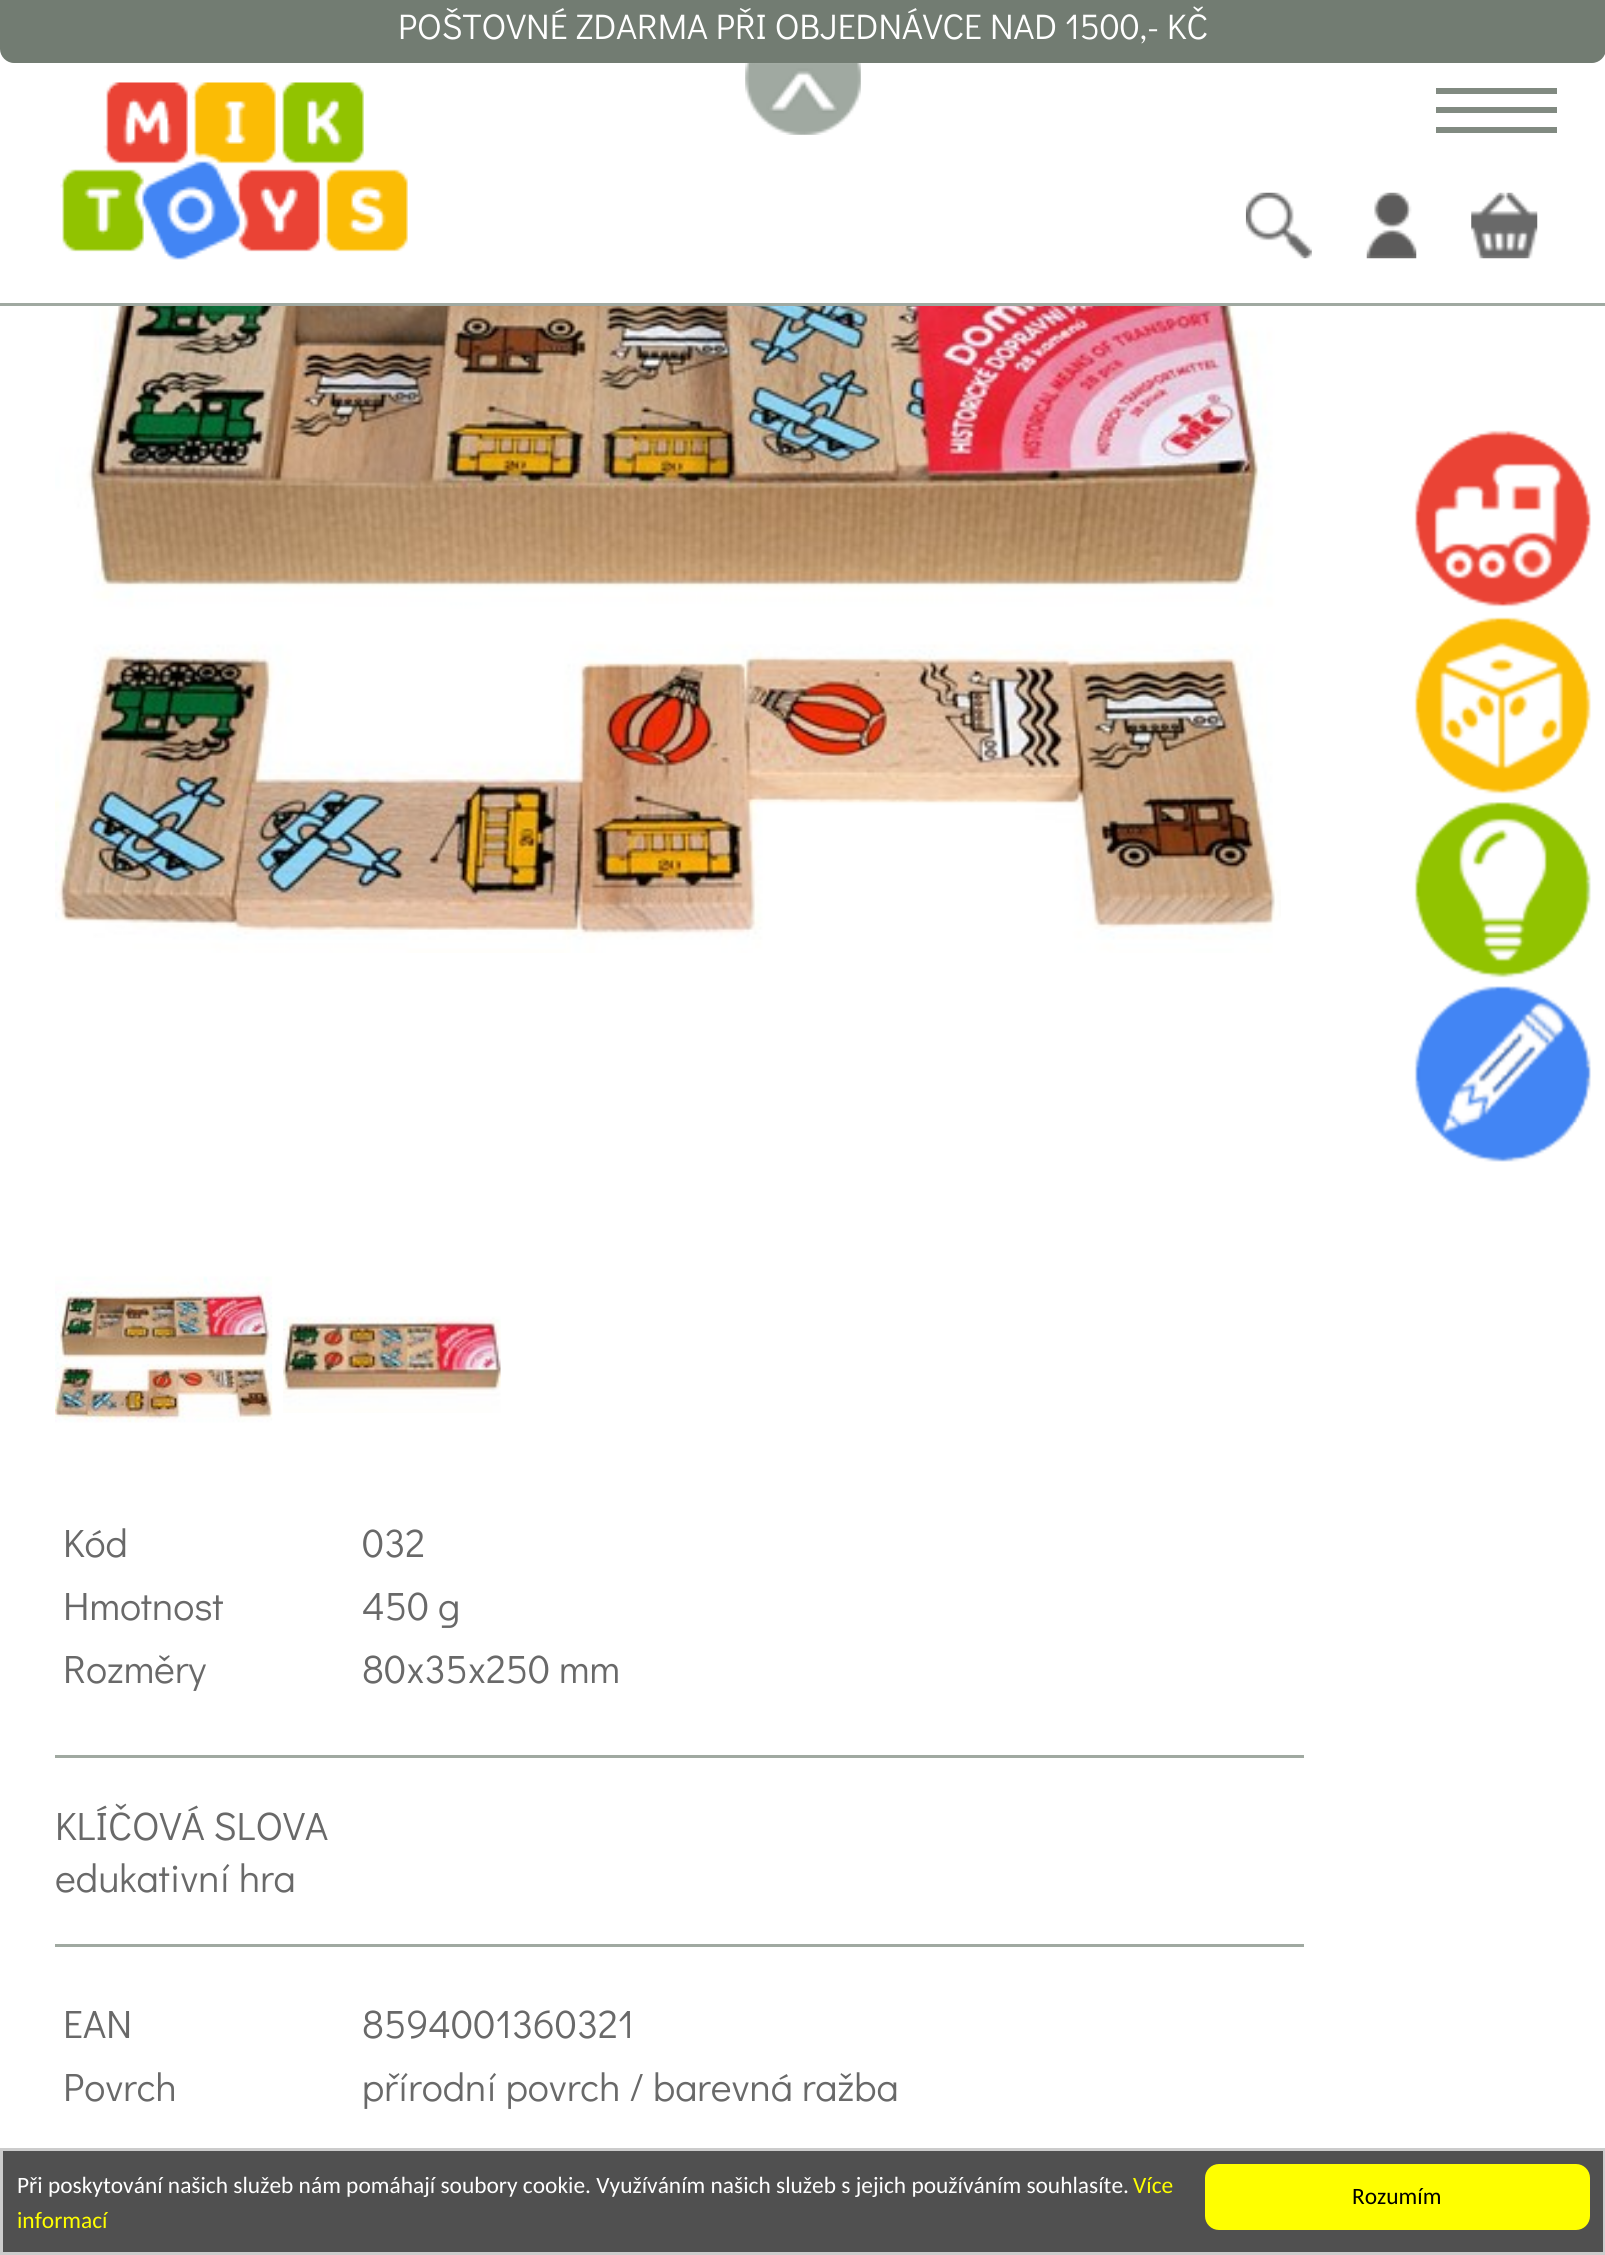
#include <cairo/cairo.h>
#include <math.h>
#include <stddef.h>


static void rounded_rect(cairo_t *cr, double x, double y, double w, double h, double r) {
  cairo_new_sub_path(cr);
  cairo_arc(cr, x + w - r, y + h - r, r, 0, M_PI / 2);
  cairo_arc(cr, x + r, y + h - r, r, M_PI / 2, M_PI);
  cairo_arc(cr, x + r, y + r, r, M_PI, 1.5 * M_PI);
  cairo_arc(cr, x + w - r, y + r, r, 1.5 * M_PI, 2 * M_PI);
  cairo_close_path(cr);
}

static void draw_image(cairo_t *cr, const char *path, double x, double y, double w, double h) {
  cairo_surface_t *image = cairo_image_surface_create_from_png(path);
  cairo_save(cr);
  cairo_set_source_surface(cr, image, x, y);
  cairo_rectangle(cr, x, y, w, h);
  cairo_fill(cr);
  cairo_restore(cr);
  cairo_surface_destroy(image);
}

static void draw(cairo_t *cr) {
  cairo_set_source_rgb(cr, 1, 1, 1);
  cairo_paint(cr);
  cairo_set_source_rgb(cr, 114 / 255.0, 124 / 255.0, 114 / 255.0);
  cairo_new_path(cr);
  cairo_move_to(cr, 0, 0);
  cairo_line_to(cr, 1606, 0);
  cairo_line_to(cr, 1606, 49);
  cairo_curve_to(cr, 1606, 56.5, 1599.5, 63, 1592, 63);
  cairo_line_to(cr, 14, 63);
  cairo_curve_to(cr, 6.5, 63, 0, 56.5, 0, 49);
  cairo_close_path(cr);
  cairo_fill(cr);
  draw_image(cr, "images/1.png", 745, 63, 116, 72);
  draw_image(cr, "images/2.png", 60, 82, 348, 178);
  cairo_set_source_rgb(cr, 129 / 255.0, 138 / 255.0, 129 / 255.0);
  cairo_rectangle(cr, 1436, 88, 121, 6);
  cairo_fill(cr);
  cairo_rectangle(cr, 1436, 107, 121, 6);
  cairo_fill(cr);
  cairo_rectangle(cr, 1436, 127, 121, 6);
  cairo_fill(cr);
  cairo_set_source_rgb(cr, 160 / 255.0, 169 / 255.0, 161 / 255.0);
  cairo_rectangle(cr, 0, 303, 1605, 3);
  cairo_fill(cr);
  draw_image(cr, "images/3.png", 1245, 192, 67, 67);
  draw_image(cr, "images/4.png", 1366, 192, 51, 67);
  draw_image(cr, "images/5.png", 1471, 192, 67, 67);
  draw_image(cr, "images/6.png", 1414, 430, 177, 177);
  draw_image(cr, "images/7.png", 1414, 617, 177, 177);
  draw_image(cr, "images/8.png", 1414, 802, 177, 176);
  draw_image(cr, "images/9.png", 1414, 986, 177, 176);
  draw_image(cr, "images/10.png", 55, 306, 1226, 647);
  draw_image(cr, "images/11.png", 55, 1276, 218, 147);
  draw_image(cr, "images/12.png", 283, 1316, 218, 97);
  cairo_rectangle(cr, 55, 1755, 1249, 3);
  cairo_fill(cr);
  cairo_rectangle(cr, 55, 1944, 1249, 3);
  cairo_fill(cr);
  cairo_set_source_rgb(cr, 80 / 255.0, 80 / 255.0, 80 / 255.0);
  cairo_rectangle(cr, 1.5, 2149.5, 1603, 104);
  cairo_fill_preserve(cr);
  cairo_set_source_rgb(cr, 204 / 255.0, 204 / 255.0, 204 / 255.0);
  cairo_set_line_width(cr, 3);
  cairo_stroke(cr);
  cairo_set_source_rgb(cr, 1, 1, 0);
  rounded_rect(cr, 1205, 2164, 385, 66, 14);
  cairo_fill(cr);
  cairo_select_font_face(cr, "Didact Gothic", CAIRO_FONT_SLANT_NORMAL, CAIRO_FONT_WEIGHT_NORMAL);
  cairo_set_font_size(cr, 35.6);
  cairo_set_source_rgb(cr, 1, 1, 1);
  cairo_move_to(cr, 398, 39);
  cairo_show_text(cr, "POŠTOVNÉ ZDARMA PŘI OBJEDNÁVCE NAD 1500,- KČ");
  cairo_set_font_size(cr, 39.6);
  cairo_set_source_rgb(cr, 105 / 255.0, 105 / 255.0, 105 / 255.0);
  cairo_move_to(cr, 63, 1557);
  cairo_show_text(cr, "Kód");
  cairo_move_to(cr, 362, 1557);
  cairo_show_text(cr, "032");
  cairo_move_to(cr, 63, 1620);
  cairo_show_text(cr, "Hmotnost");
  cairo_move_to(cr, 362, 1620);
  cairo_show_text(cr, "450 g");
  cairo_move_to(cr, 63, 1683);
  cairo_show_text(cr, "Rozměry");
  cairo_move_to(cr, 362, 1683);
  cairo_show_text(cr, "80x35x250 mm");
  cairo_move_to(cr, 55, 1840);
  cairo_show_text(cr, "KLÍČOVÁ SLOVA");
  cairo_move_to(cr, 55, 1892);
  cairo_show_text(cr, "edukativní hra");
  cairo_move_to(cr, 63, 2038);
  cairo_show_text(cr, "EAN");
  cairo_move_to(cr, 362, 2038);
  cairo_show_text(cr, "8594001360321");
  cairo_move_to(cr, 63, 2101);
  cairo_show_text(cr, "Povrch");
  cairo_move_to(cr, 362, 2101);
  cairo_show_text(cr, "přírodní povrch / barevná ražba");
  cairo_select_font_face(cr, "Carlito", CAIRO_FONT_SLANT_NORMAL, CAIRO_FONT_WEIGHT_NORMAL);
  cairo_set_font_size(cr, 23.4);
  cairo_set_source_rgb(cr, 1, 1, 1);
  cairo_move_to(cr, 17, 2193);
  cairo_show_text(cr, "Při poskytování našich služeb nám pomáhají soubory cookie. Využíváním našich služeb s jejich používáním souhlasíte.");
  cairo_set_source_rgb(cr, 1, 1, 0);
  cairo_move_to(cr, 1133, 2193);
  cairo_show_text(cr, "Více");
  cairo_move_to(cr, 17, 2228);
  cairo_show_text(cr, "informací");
  cairo_set_source_rgb(cr, 0, 0, 0);
  cairo_move_to(cr, 1352, 2204);
  cairo_show_text(cr, "Rozumím");
}

int main(void) {
  cairo_surface_t *surface = cairo_image_surface_create(CAIRO_FORMAT_RGB24, 1605, 2255);
  cairo_t *cr = cairo_create(surface);
  cairo_font_options_t *options = cairo_font_options_create();
  cairo_font_options_set_hint_metrics(options, CAIRO_HINT_METRICS_OFF);
  cairo_font_options_set_hint_style(options, CAIRO_HINT_STYLE_NONE);
  cairo_set_font_options(cr, options);
  cairo_set_miter_limit(cr, 4);
  draw(cr);
  cairo_surface_write_to_png(surface, "out.png");
  cairo_font_options_destroy(options);
  cairo_destroy(cr);
  cairo_surface_destroy(surface);
  return 0;
}
